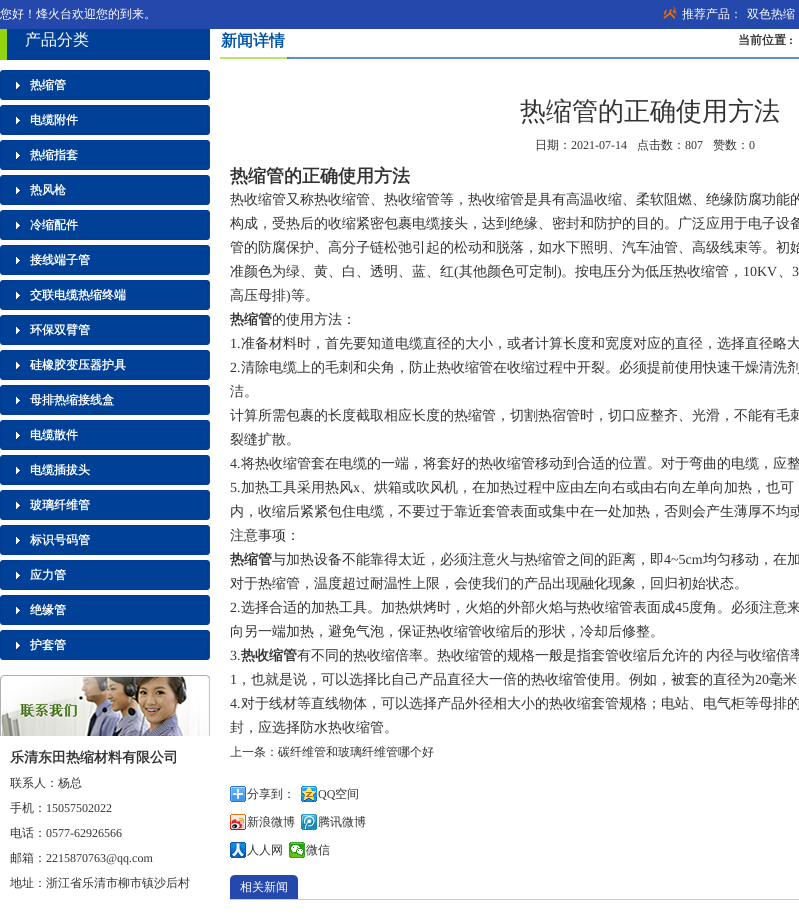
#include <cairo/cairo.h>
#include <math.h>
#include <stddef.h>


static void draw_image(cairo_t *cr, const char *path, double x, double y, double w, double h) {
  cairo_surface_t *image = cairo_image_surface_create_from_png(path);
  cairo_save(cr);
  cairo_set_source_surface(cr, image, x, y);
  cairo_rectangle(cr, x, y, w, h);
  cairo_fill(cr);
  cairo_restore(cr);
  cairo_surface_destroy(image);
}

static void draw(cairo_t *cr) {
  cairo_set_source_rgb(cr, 1, 1, 1);
  cairo_paint(cr);
  cairo_set_source_rgb(cr, 37 / 255.0, 72 / 255.0, 172 / 255.0);
  cairo_rectangle(cr, 0, 0, 799, 29);
  cairo_fill(cr);
  draw_image(cr, "images/1.png", 663, 5, 14, 14);
  cairo_set_source_rgb(cr, 0, 64 / 255.0, 151 / 255.0);
  cairo_rectangle(cr, 7, 29, 203, 31);
  cairo_fill(cr);
  cairo_set_source_rgb(cr, 146 / 255.0, 214 / 255.0, 15 / 255.0);
  cairo_rectangle(cr, 0, 29, 7, 31);
  cairo_fill(cr);
  draw_image(cr, "images/2.png", 0, 70, 210, 30);
  draw_image(cr, "images/2.png", 0, 105, 210, 30);
  draw_image(cr, "images/2.png", 0, 140, 210, 30);
  draw_image(cr, "images/2.png", 0, 175, 210, 30);
  draw_image(cr, "images/2.png", 0, 210, 210, 30);
  draw_image(cr, "images/2.png", 0, 245, 210, 30);
  draw_image(cr, "images/2.png", 0, 280, 210, 30);
  draw_image(cr, "images/2.png", 0, 315, 210, 30);
  draw_image(cr, "images/2.png", 0, 350, 210, 30);
  draw_image(cr, "images/2.png", 0, 385, 210, 30);
  draw_image(cr, "images/2.png", 0, 420, 210, 30);
  draw_image(cr, "images/2.png", 0, 455, 210, 30);
  draw_image(cr, "images/2.png", 0, 490, 210, 30);
  draw_image(cr, "images/2.png", 0, 525, 210, 30);
  draw_image(cr, "images/2.png", 0, 560, 210, 30);
  draw_image(cr, "images/2.png", 0, 595, 210, 30);
  draw_image(cr, "images/2.png", 0, 630, 210, 30);
  draw_image(cr, "images/3.png", 0, 675, 210, 61);
  draw_image(cr, "images/4.png", 220, 57, 579, 2);
  draw_image(cr, "images/5.png", 230, 786, 16, 16);
  draw_image(cr, "images/6.png", 301, 786, 16, 16);
  draw_image(cr, "images/7.png", 230, 814, 16, 16);
  draw_image(cr, "images/8.png", 301, 814, 16, 16);
  draw_image(cr, "images/9.png", 230, 842, 16, 16);
  draw_image(cr, "images/10.png", 289, 842, 16, 16);
  cairo_set_source_rgb(cr, 204 / 255.0, 204 / 255.0, 204 / 255.0);
  cairo_rectangle(cr, 230, 899, 569, 1);
  cairo_fill(cr);
  cairo_set_source_rgb(cr, 37 / 255.0, 72 / 255.0, 172 / 255.0);
  cairo_new_path(cr);
  cairo_move_to(cr, 235, 875);
  cairo_line_to(cr, 293, 875);
  cairo_curve_to(cr, 296, 875, 298, 877, 298, 880);
  cairo_line_to(cr, 298, 899);
  cairo_line_to(cr, 230, 899);
  cairo_line_to(cr, 230, 880);
  cairo_curve_to(cr, 230, 877, 232, 875, 235, 875);
  cairo_close_path(cr);
  cairo_fill(cr);
  cairo_select_font_face(cr, "WenQuanYi Zen Hei Medium", CAIRO_FONT_SLANT_NORMAL, CAIRO_FONT_WEIGHT_NORMAL);
  cairo_set_font_size(cr, 12);
  cairo_set_source_rgb(cr, 1, 1, 1);
  cairo_move_to(cr, 0, 18);
  cairo_show_text(cr, "您好！烽火台欢迎您的到来。");
  cairo_move_to(cr, 682, 18);
  cairo_show_text(cr, "推荐产品：");
  cairo_move_to(cr, 747, 18);
  cairo_show_text(cr, "双色热缩");
  cairo_set_font_size(cr, 16);
  cairo_move_to(cr, 25, 45);
  cairo_show_text(cr, "产品分类");
  cairo_select_font_face(cr, "WenQuanYi Zen Hei", CAIRO_FONT_SLANT_NORMAL, CAIRO_FONT_WEIGHT_BOLD);
  cairo_set_font_size(cr, 12);
  cairo_move_to(cr, 30, 89);
  cairo_show_text(cr, "热缩管");
  cairo_move_to(cr, 30, 124);
  cairo_show_text(cr, "电缆附件");
  cairo_move_to(cr, 30, 159);
  cairo_show_text(cr, "热缩指套");
  cairo_move_to(cr, 30, 194);
  cairo_show_text(cr, "热风枪");
  cairo_move_to(cr, 30, 229);
  cairo_show_text(cr, "冷缩配件");
  cairo_move_to(cr, 30, 264);
  cairo_show_text(cr, "接线端子管");
  cairo_move_to(cr, 30, 299);
  cairo_show_text(cr, "交联电缆热缩终端");
  cairo_move_to(cr, 30, 334);
  cairo_show_text(cr, "环保双臂管");
  cairo_move_to(cr, 30, 369);
  cairo_show_text(cr, "硅橡胶变压器护具");
  cairo_move_to(cr, 30, 404);
  cairo_show_text(cr, "母排热缩接线盒");
  cairo_move_to(cr, 30, 439);
  cairo_show_text(cr, "电缆散件");
  cairo_move_to(cr, 30, 474);
  cairo_show_text(cr, "电缆插拔头");
  cairo_move_to(cr, 30, 509);
  cairo_show_text(cr, "玻璃纤维管");
  cairo_move_to(cr, 30, 544);
  cairo_show_text(cr, "标识号码管");
  cairo_move_to(cr, 30, 579);
  cairo_show_text(cr, "应力管");
  cairo_move_to(cr, 30, 614);
  cairo_show_text(cr, "绝缘管");
  cairo_move_to(cr, 30, 649);
  cairo_show_text(cr, "护套管");
  cairo_set_font_size(cr, 14);
  cairo_set_source_rgb(cr, 51 / 255.0, 51 / 255.0, 51 / 255.0);
  cairo_move_to(cr, 10, 762);
  cairo_show_text(cr, "乐清东田热缩材料有限公司");
  cairo_select_font_face(cr, "WenQuanYi Zen Hei Medium", CAIRO_FONT_SLANT_NORMAL, CAIRO_FONT_WEIGHT_NORMAL);
  cairo_set_font_size(cr, 12);
  cairo_move_to(cr, 10, 787);
  cairo_show_text(cr, "联系人：杨总");
  cairo_move_to(cr, 10, 812);
  cairo_show_text(cr, "手机：");
  cairo_select_font_face(cr, "Liberation Serif", CAIRO_FONT_SLANT_NORMAL, CAIRO_FONT_WEIGHT_NORMAL);
  cairo_move_to(cr, 46, 812);
  cairo_show_text(cr, "15057502022");
  cairo_select_font_face(cr, "WenQuanYi Zen Hei Medium", CAIRO_FONT_SLANT_NORMAL, CAIRO_FONT_WEIGHT_NORMAL);
  cairo_move_to(cr, 10, 837);
  cairo_show_text(cr, "电话：");
  cairo_select_font_face(cr, "Liberation Serif", CAIRO_FONT_SLANT_NORMAL, CAIRO_FONT_WEIGHT_NORMAL);
  cairo_move_to(cr, 46, 837);
  cairo_show_text(cr, "0577-62926566");
  cairo_select_font_face(cr, "WenQuanYi Zen Hei Medium", CAIRO_FONT_SLANT_NORMAL, CAIRO_FONT_WEIGHT_NORMAL);
  cairo_move_to(cr, 10, 862);
  cairo_show_text(cr, "邮箱：");
  cairo_select_font_face(cr, "Liberation Serif", CAIRO_FONT_SLANT_NORMAL, CAIRO_FONT_WEIGHT_NORMAL);
  cairo_move_to(cr, 46, 862);
  cairo_show_text(cr, "2215870763@qq.com");
  cairo_select_font_face(cr, "WenQuanYi Zen Hei Medium", CAIRO_FONT_SLANT_NORMAL, CAIRO_FONT_WEIGHT_NORMAL);
  cairo_move_to(cr, 10, 887);
  cairo_show_text(cr, "地址：浙江省乐清市柳市镇沙后村");
  cairo_select_font_face(cr, "WenQuanYi Zen Hei", CAIRO_FONT_SLANT_NORMAL, CAIRO_FONT_WEIGHT_BOLD);
  cairo_set_font_size(cr, 16);
  cairo_set_source_rgb(cr, 1 / 255.0, 83 / 255.0, 169 / 255.0);
  cairo_move_to(cr, 221, 46);
  cairo_show_text(cr, "新闻详情");
  cairo_set_font_size(cr, 12);
  cairo_set_source_rgb(cr, 51 / 255.0, 51 / 255.0, 51 / 255.0);
  cairo_move_to(cr, 738, 44);
  cairo_show_text(cr, "当前位置");
  cairo_select_font_face(cr, "Liberation Serif", CAIRO_FONT_SLANT_NORMAL, CAIRO_FONT_WEIGHT_BOLD);
  cairo_move_to(cr, 789, 44);
  cairo_show_text(cr, ":");
  cairo_select_font_face(cr, "WenQuanYi Zen Hei Medium", CAIRO_FONT_SLANT_NORMAL, CAIRO_FONT_WEIGHT_NORMAL);
  cairo_set_font_size(cr, 26);
  cairo_move_to(cr, 520, 120);
  cairo_show_text(cr, "热缩管的正确使用方法");
  cairo_set_font_size(cr, 12);
  cairo_move_to(cr, 535, 149);
  cairo_show_text(cr, "日期：");
  cairo_select_font_face(cr, "Liberation Serif", CAIRO_FONT_SLANT_NORMAL, CAIRO_FONT_WEIGHT_NORMAL);
  cairo_move_to(cr, 571, 149);
  cairo_show_text(cr, "2021-07-14");
  cairo_select_font_face(cr, "WenQuanYi Zen Hei Medium", CAIRO_FONT_SLANT_NORMAL, CAIRO_FONT_WEIGHT_NORMAL);
  cairo_move_to(cr, 637, 149);
  cairo_show_text(cr, "点击数：");
  cairo_select_font_face(cr, "Liberation Serif", CAIRO_FONT_SLANT_NORMAL, CAIRO_FONT_WEIGHT_NORMAL);
  cairo_move_to(cr, 685, 149);
  cairo_show_text(cr, "807");
  cairo_select_font_face(cr, "WenQuanYi Zen Hei Medium", CAIRO_FONT_SLANT_NORMAL, CAIRO_FONT_WEIGHT_NORMAL);
  cairo_move_to(cr, 713, 149);
  cairo_show_text(cr, "赞数：");
  cairo_select_font_face(cr, "Liberation Serif", CAIRO_FONT_SLANT_NORMAL, CAIRO_FONT_WEIGHT_NORMAL);
  cairo_move_to(cr, 749, 149);
  cairo_show_text(cr, "0");
  cairo_select_font_face(cr, "WenQuanYi Zen Hei", CAIRO_FONT_SLANT_NORMAL, CAIRO_FONT_WEIGHT_BOLD);
  cairo_set_font_size(cr, 18);
  cairo_move_to(cr, 230, 182);
  cairo_show_text(cr, "热缩管的正确使用方法");
  cairo_select_font_face(cr, "WenQuanYi Zen Hei Medium", CAIRO_FONT_SLANT_NORMAL, CAIRO_FONT_WEIGHT_NORMAL);
  cairo_set_font_size(cr, 14);
  cairo_move_to(cr, 230, 204);
  cairo_show_text(cr, "热收缩管又称热收缩管、热收缩管等，热收缩管是具有高温收缩、柔软阻燃、绝缘防腐功能的");
  cairo_move_to(cr, 230, 228);
  cairo_show_text(cr, "构成，受热后的收缩紧密包裹电缆接头，达到绝缘、密封和防护的目的。广泛应用于电子设备");
  cairo_move_to(cr, 230, 252);
  cairo_show_text(cr, "管的防腐保护、高分子链松弛引起的松动和脱落，如水下照明、汽车油管、高级线束等。初始");
  cairo_move_to(cr, 230, 276);
  cairo_show_text(cr, "准颜色为绿、黄、白、透明、蓝、红");
  cairo_select_font_face(cr, "Liberation Serif", CAIRO_FONT_SLANT_NORMAL, CAIRO_FONT_WEIGHT_NORMAL);
  cairo_move_to(cr, 454, 276);
  cairo_show_text(cr, "(");
  cairo_select_font_face(cr, "WenQuanYi Zen Hei Medium", CAIRO_FONT_SLANT_NORMAL, CAIRO_FONT_WEIGHT_NORMAL);
  cairo_move_to(cr, 459, 276);
  cairo_show_text(cr, "其他颜色可定制");
  cairo_select_font_face(cr, "Liberation Serif", CAIRO_FONT_SLANT_NORMAL, CAIRO_FONT_WEIGHT_NORMAL);
  cairo_move_to(cr, 557, 276);
  cairo_show_text(cr, ")");
  cairo_select_font_face(cr, "WenQuanYi Zen Hei Medium", CAIRO_FONT_SLANT_NORMAL, CAIRO_FONT_WEIGHT_NORMAL);
  cairo_move_to(cr, 561, 276);
  cairo_show_text(cr, "。按电压分为低压热收缩管，");
  cairo_select_font_face(cr, "Liberation Serif", CAIRO_FONT_SLANT_NORMAL, CAIRO_FONT_WEIGHT_NORMAL);
  cairo_move_to(cr, 743, 276);
  cairo_show_text(cr, "10KV");
  cairo_select_font_face(cr, "WenQuanYi Zen Hei Medium", CAIRO_FONT_SLANT_NORMAL, CAIRO_FONT_WEIGHT_NORMAL);
  cairo_move_to(cr, 778, 276);
  cairo_show_text(cr, "、");
  cairo_select_font_face(cr, "Liberation Serif", CAIRO_FONT_SLANT_NORMAL, CAIRO_FONT_WEIGHT_NORMAL);
  cairo_move_to(cr, 792, 276);
  cairo_show_text(cr, "3");
  cairo_select_font_face(cr, "WenQuanYi Zen Hei Medium", CAIRO_FONT_SLANT_NORMAL, CAIRO_FONT_WEIGHT_NORMAL);
  cairo_move_to(cr, 230, 300);
  cairo_show_text(cr, "高压母排");
  cairo_select_font_face(cr, "Liberation Serif", CAIRO_FONT_SLANT_NORMAL, CAIRO_FONT_WEIGHT_NORMAL);
  cairo_move_to(cr, 286, 300);
  cairo_show_text(cr, ")");
  cairo_select_font_face(cr, "WenQuanYi Zen Hei Medium", CAIRO_FONT_SLANT_NORMAL, CAIRO_FONT_WEIGHT_NORMAL);
  cairo_move_to(cr, 291, 300);
  cairo_show_text(cr, "等。");
  cairo_select_font_face(cr, "WenQuanYi Zen Hei", CAIRO_FONT_SLANT_NORMAL, CAIRO_FONT_WEIGHT_BOLD);
  cairo_move_to(cr, 230, 324);
  cairo_show_text(cr, "热缩管");
  cairo_select_font_face(cr, "WenQuanYi Zen Hei Medium", CAIRO_FONT_SLANT_NORMAL, CAIRO_FONT_WEIGHT_NORMAL);
  cairo_move_to(cr, 272, 324);
  cairo_show_text(cr, "的使用方法：");
  cairo_select_font_face(cr, "Liberation Serif", CAIRO_FONT_SLANT_NORMAL, CAIRO_FONT_WEIGHT_NORMAL);
  cairo_move_to(cr, 230, 348);
  cairo_show_text(cr, "1.");
  cairo_select_font_face(cr, "WenQuanYi Zen Hei Medium", CAIRO_FONT_SLANT_NORMAL, CAIRO_FONT_WEIGHT_NORMAL);
  cairo_move_to(cr, 241, 348);
  cairo_show_text(cr, "准备材料时，首先要知道电缆直径的大小，或者计算长度和宽度对应的直径，选择直径略大");
  cairo_select_font_face(cr, "Liberation Serif", CAIRO_FONT_SLANT_NORMAL, CAIRO_FONT_WEIGHT_NORMAL);
  cairo_move_to(cr, 230, 372);
  cairo_show_text(cr, "2.");
  cairo_select_font_face(cr, "WenQuanYi Zen Hei Medium", CAIRO_FONT_SLANT_NORMAL, CAIRO_FONT_WEIGHT_NORMAL);
  cairo_move_to(cr, 241, 372);
  cairo_show_text(cr, "清除电缆上的毛刺和尖角，防止热收缩管在收缩过程中开裂。必须提前使用快速干燥清洗剂");
  cairo_move_to(cr, 230, 396);
  cairo_show_text(cr, "洁。");
  cairo_move_to(cr, 230, 420);
  cairo_show_text(cr, "计算所需包裹的长度截取相应长度的热缩管，切割热宿管时，切口应整齐、光滑，不能有毛刺");
  cairo_move_to(cr, 230, 444);
  cairo_show_text(cr, "裂缝扩散。");
  cairo_select_font_face(cr, "Liberation Serif", CAIRO_FONT_SLANT_NORMAL, CAIRO_FONT_WEIGHT_NORMAL);
  cairo_move_to(cr, 230, 468);
  cairo_show_text(cr, "4.");
  cairo_select_font_face(cr, "WenQuanYi Zen Hei Medium", CAIRO_FONT_SLANT_NORMAL, CAIRO_FONT_WEIGHT_NORMAL);
  cairo_move_to(cr, 241, 468);
  cairo_show_text(cr, "将热收缩管套在电缆的一端，将套好的热收缩管移动到合适的位置。对于弯曲的电缆，应整");
  cairo_select_font_face(cr, "Liberation Serif", CAIRO_FONT_SLANT_NORMAL, CAIRO_FONT_WEIGHT_NORMAL);
  cairo_move_to(cr, 230, 492);
  cairo_show_text(cr, "5.");
  cairo_select_font_face(cr, "WenQuanYi Zen Hei Medium", CAIRO_FONT_SLANT_NORMAL, CAIRO_FONT_WEIGHT_NORMAL);
  cairo_move_to(cr, 241, 492);
  cairo_show_text(cr, "加热工具采用热风");
  cairo_select_font_face(cr, "Liberation Serif", CAIRO_FONT_SLANT_NORMAL, CAIRO_FONT_WEIGHT_NORMAL);
  cairo_move_to(cr, 353, 492);
  cairo_show_text(cr, "x");
  cairo_select_font_face(cr, "WenQuanYi Zen Hei Medium", CAIRO_FONT_SLANT_NORMAL, CAIRO_FONT_WEIGHT_NORMAL);
  cairo_move_to(cr, 360, 492);
  cairo_show_text(cr, "、烘箱或吹风机，在加热过程中应由左向右或由右向左单向加热，也可");
  cairo_move_to(cr, 230, 516);
  cairo_show_text(cr, "内，收缩后紧紧包住电缆，不要过于靠近套管表面或集中在一处加热，否则会产生薄厚不均或");
  cairo_move_to(cr, 230, 540);
  cairo_show_text(cr, "注意事项：");
  cairo_select_font_face(cr, "WenQuanYi Zen Hei", CAIRO_FONT_SLANT_NORMAL, CAIRO_FONT_WEIGHT_BOLD);
  cairo_move_to(cr, 230, 564);
  cairo_show_text(cr, "热缩管");
  cairo_select_font_face(cr, "WenQuanYi Zen Hei Medium", CAIRO_FONT_SLANT_NORMAL, CAIRO_FONT_WEIGHT_NORMAL);
  cairo_move_to(cr, 272, 564);
  cairo_show_text(cr, "与加热设备不能靠得太近，必须注意火与热缩管之间的距离，即");
  cairo_select_font_face(cr, "Liberation Serif", CAIRO_FONT_SLANT_NORMAL, CAIRO_FONT_WEIGHT_NORMAL);
  cairo_move_to(cr, 664, 564);
  cairo_show_text(cr, "4~5cm");
  cairo_select_font_face(cr, "WenQuanYi Zen Hei Medium", CAIRO_FONT_SLANT_NORMAL, CAIRO_FONT_WEIGHT_NORMAL);
  cairo_move_to(cr, 703, 564);
  cairo_show_text(cr, "均匀移动，在加");
  cairo_move_to(cr, 230, 588);
  cairo_show_text(cr, "对于热缩管，温度超过耐温性上限，会使我们的产品出现融化现象，回归初始状态。");
  cairo_select_font_face(cr, "Liberation Serif", CAIRO_FONT_SLANT_NORMAL, CAIRO_FONT_WEIGHT_NORMAL);
  cairo_move_to(cr, 230, 612);
  cairo_show_text(cr, "2.");
  cairo_select_font_face(cr, "WenQuanYi Zen Hei Medium", CAIRO_FONT_SLANT_NORMAL, CAIRO_FONT_WEIGHT_NORMAL);
  cairo_move_to(cr, 241, 612);
  cairo_show_text(cr, "选择合适的加热工具。加热烘烤时，火焰的外部火焰与热收缩管表面成");
  cairo_select_font_face(cr, "Liberation Serif", CAIRO_FONT_SLANT_NORMAL, CAIRO_FONT_WEIGHT_NORMAL);
  cairo_move_to(cr, 675, 612);
  cairo_show_text(cr, "45");
  cairo_select_font_face(cr, "WenQuanYi Zen Hei Medium", CAIRO_FONT_SLANT_NORMAL, CAIRO_FONT_WEIGHT_NORMAL);
  cairo_move_to(cr, 689, 612);
  cairo_show_text(cr, "度角。必须注意来");
  cairo_move_to(cr, 230, 636);
  cairo_show_text(cr, "向另一端加热，避免气泡，保证热收缩管收缩后的形状，冷却后修整。");
  cairo_select_font_face(cr, "Liberation Serif", CAIRO_FONT_SLANT_NORMAL, CAIRO_FONT_WEIGHT_NORMAL);
  cairo_move_to(cr, 230, 660);
  cairo_show_text(cr, "3.");
  cairo_select_font_face(cr, "WenQuanYi Zen Hei", CAIRO_FONT_SLANT_NORMAL, CAIRO_FONT_WEIGHT_BOLD);
  cairo_move_to(cr, 241, 660);
  cairo_show_text(cr, "热收缩管");
  cairo_select_font_face(cr, "WenQuanYi Zen Hei Medium", CAIRO_FONT_SLANT_NORMAL, CAIRO_FONT_WEIGHT_NORMAL);
  cairo_move_to(cr, 297, 660);
  cairo_show_text(cr, "有不同的热收缩倍率。热收缩管的规格一般是指套管收缩后允许的");
  cairo_move_to(cr, 706, 660);
  cairo_show_text(cr, "内径与收缩倍率");
  cairo_select_font_face(cr, "Liberation Serif", CAIRO_FONT_SLANT_NORMAL, CAIRO_FONT_WEIGHT_NORMAL);
  cairo_move_to(cr, 230, 684);
  cairo_show_text(cr, "1");
  cairo_select_font_face(cr, "WenQuanYi Zen Hei Medium", CAIRO_FONT_SLANT_NORMAL, CAIRO_FONT_WEIGHT_NORMAL);
  cairo_move_to(cr, 237, 684);
  cairo_show_text(cr, "，也就是说，可以选择比自己产品直径大一倍的热收缩管使用。例如，被套的直径为");
  cairo_select_font_face(cr, "Liberation Serif", CAIRO_FONT_SLANT_NORMAL, CAIRO_FONT_WEIGHT_NORMAL);
  cairo_move_to(cr, 755, 684);
  cairo_show_text(cr, "20");
  cairo_select_font_face(cr, "WenQuanYi Zen Hei Medium", CAIRO_FONT_SLANT_NORMAL, CAIRO_FONT_WEIGHT_NORMAL);
  cairo_move_to(cr, 769, 684);
  cairo_show_text(cr, "毫米");
  cairo_select_font_face(cr, "Liberation Serif", CAIRO_FONT_SLANT_NORMAL, CAIRO_FONT_WEIGHT_NORMAL);
  cairo_move_to(cr, 230, 708);
  cairo_show_text(cr, "4.");
  cairo_select_font_face(cr, "WenQuanYi Zen Hei Medium", CAIRO_FONT_SLANT_NORMAL, CAIRO_FONT_WEIGHT_NORMAL);
  cairo_move_to(cr, 241, 708);
  cairo_show_text(cr, "对于线材等直线物体，可以选择产品外径相大小的热收缩套管规格；电站、电气柜等母排的");
  cairo_move_to(cr, 230, 732);
  cairo_show_text(cr, "封，应选择防水热收缩管。");
  cairo_set_font_size(cr, 12);
  cairo_move_to(cr, 230, 756);
  cairo_show_text(cr, "上一条：碳纤维管和玻璃纤维管哪个好");
  cairo_move_to(cr, 247, 798);
  cairo_show_text(cr, "分享到：");
  cairo_select_font_face(cr, "Liberation Serif", CAIRO_FONT_SLANT_NORMAL, CAIRO_FONT_WEIGHT_NORMAL);
  cairo_move_to(cr, 318, 798);
  cairo_show_text(cr, "QQ");
  cairo_select_font_face(cr, "WenQuanYi Zen Hei Medium", CAIRO_FONT_SLANT_NORMAL, CAIRO_FONT_WEIGHT_NORMAL);
  cairo_move_to(cr, 335, 798);
  cairo_show_text(cr, "空间");
  cairo_move_to(cr, 247, 826);
  cairo_show_text(cr, "新浪微博");
  cairo_move_to(cr, 318, 826);
  cairo_show_text(cr, "腾讯微博");
  cairo_move_to(cr, 247, 854);
  cairo_show_text(cr, "人人网");
  cairo_move_to(cr, 306, 854);
  cairo_show_text(cr, "微信");
  cairo_set_source_rgb(cr, 1, 1, 1);
  cairo_move_to(cr, 240, 891);
  cairo_show_text(cr, "相关新闻");
}

int main(void) {
  cairo_surface_t *surface = cairo_image_surface_create(CAIRO_FORMAT_RGB24, 799, 918);
  cairo_t *cr = cairo_create(surface);
  cairo_font_options_t *options = cairo_font_options_create();
  cairo_font_options_set_hint_metrics(options, CAIRO_HINT_METRICS_OFF);
  cairo_font_options_set_hint_style(options, CAIRO_HINT_STYLE_NONE);
  cairo_set_font_options(cr, options);
  cairo_set_miter_limit(cr, 4);
  draw(cr);
  cairo_surface_write_to_png(surface, "out.png");
  cairo_font_options_destroy(options);
  cairo_destroy(cr);
  cairo_surface_destroy(surface);
  return 0;
}
